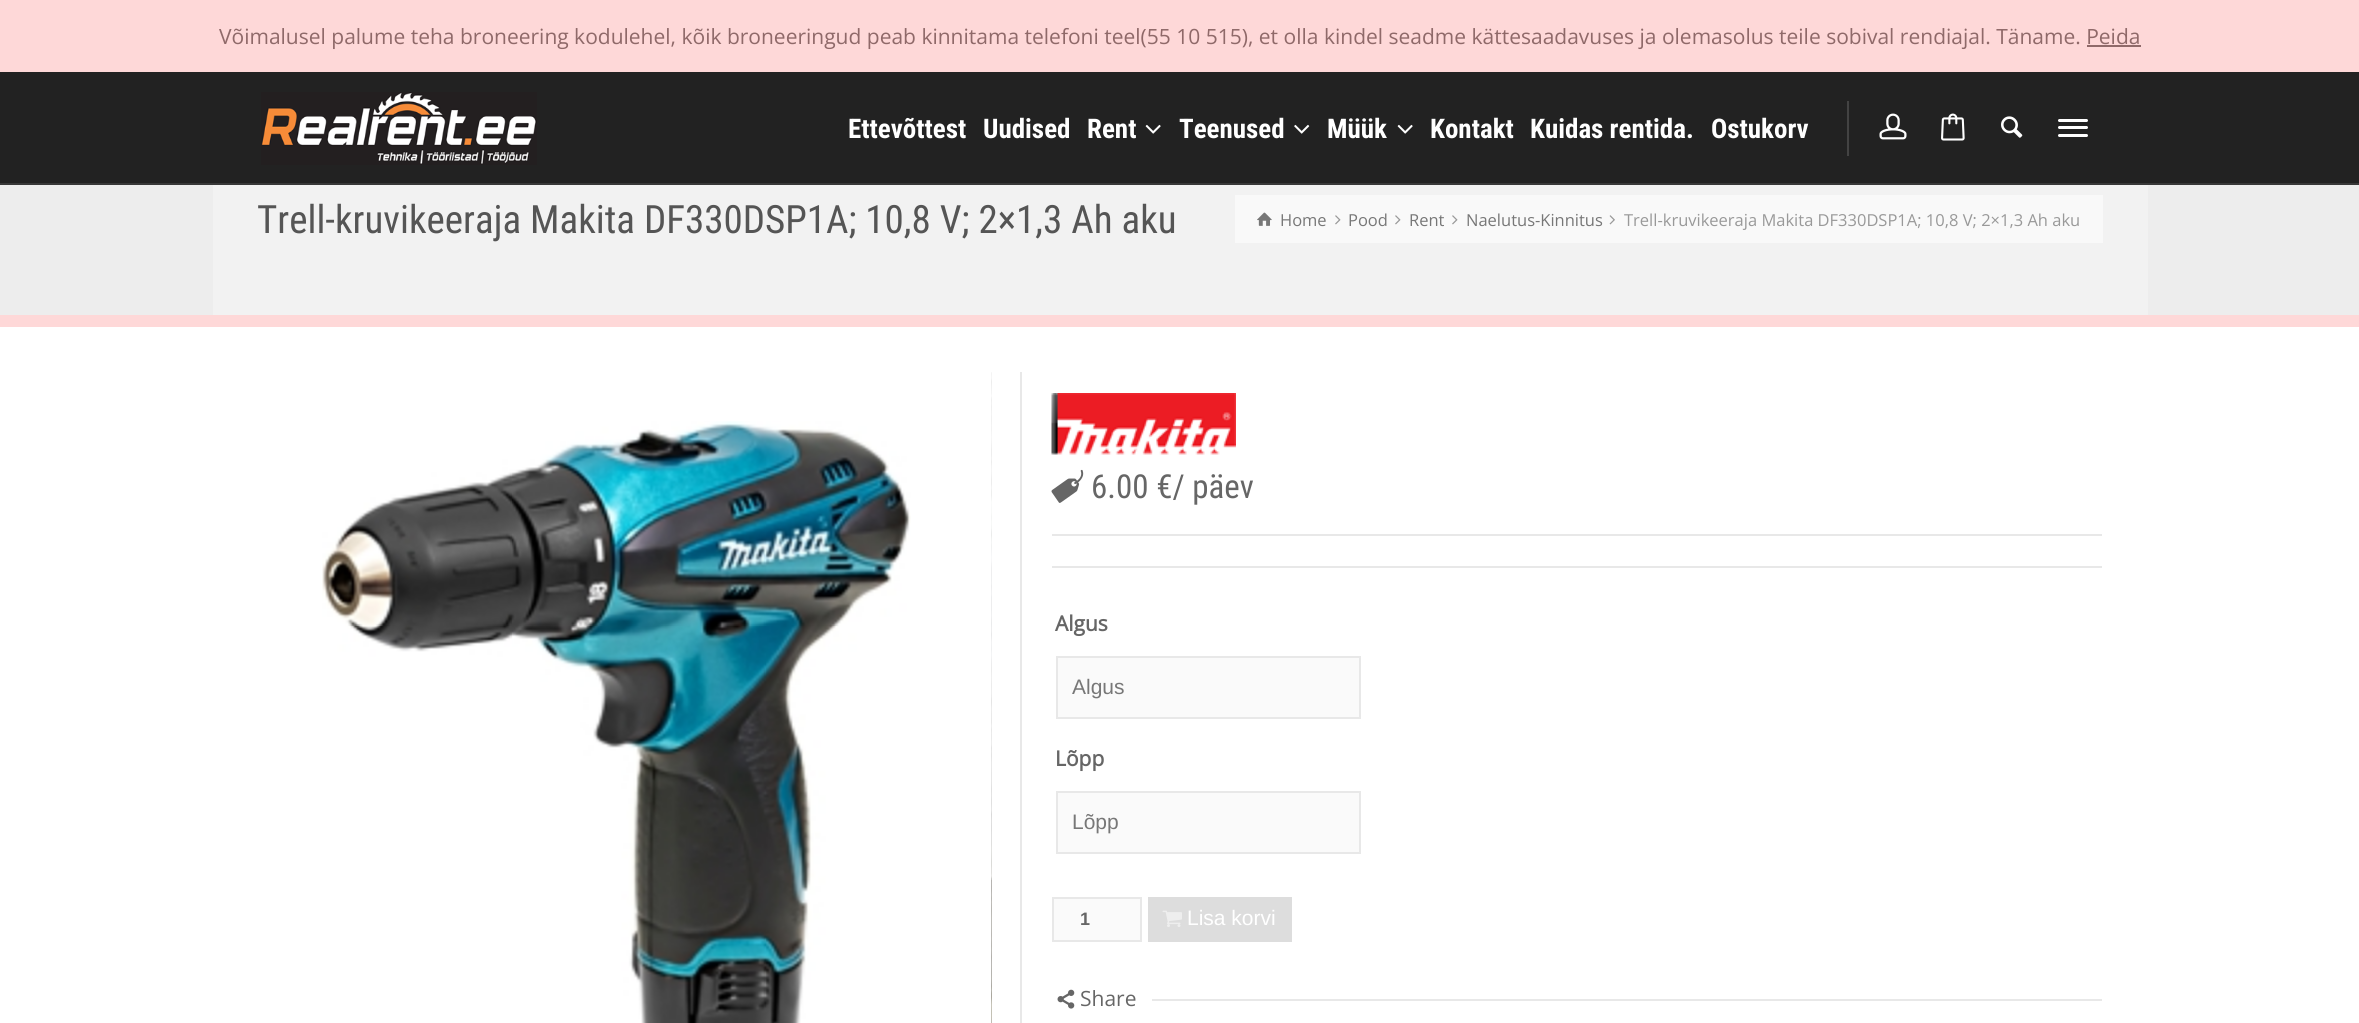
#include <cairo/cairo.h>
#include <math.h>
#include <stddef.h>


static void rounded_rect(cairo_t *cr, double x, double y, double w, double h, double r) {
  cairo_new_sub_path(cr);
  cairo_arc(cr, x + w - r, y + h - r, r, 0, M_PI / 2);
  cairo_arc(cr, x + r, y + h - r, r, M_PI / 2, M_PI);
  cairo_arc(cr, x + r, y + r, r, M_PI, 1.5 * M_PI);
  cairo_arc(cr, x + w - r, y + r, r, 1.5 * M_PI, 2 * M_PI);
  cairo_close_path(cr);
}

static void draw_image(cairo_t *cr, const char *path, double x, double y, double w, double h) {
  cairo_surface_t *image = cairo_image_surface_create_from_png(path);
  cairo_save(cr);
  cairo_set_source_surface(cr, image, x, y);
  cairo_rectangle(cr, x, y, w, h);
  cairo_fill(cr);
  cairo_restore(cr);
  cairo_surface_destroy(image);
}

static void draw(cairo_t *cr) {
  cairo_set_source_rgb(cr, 237 / 255.0, 237 / 255.0, 237 / 255.0);
  cairo_paint(cr);
  cairo_set_source_rgb(cr, 254 / 255.0, 216 / 255.0, 216 / 255.0);
  cairo_rectangle(cr, 0, 0, 2359, 72);
  cairo_fill(cr);
  cairo_set_source_rgb(cr, 143 / 255.0, 105 / 255.0, 105 / 255.0);
  cairo_rectangle(cr, 2087, 45, 54, 2);
  cairo_fill(cr);
  cairo_set_source_rgb(cr, 34 / 255.0, 34 / 255.0, 34 / 255.0);
  cairo_rectangle(cr, 0, 72, 2359, 111);
  cairo_fill(cr);
  cairo_set_source_rgb(cr, 56 / 255.0, 56 / 255.0, 56 / 255.0);
  cairo_rectangle(cr, 0, 183, 2359, 2);
  cairo_fill(cr);
  draw_image(cr, "images/1.png", 261, 92, 276, 73);
  draw_image(cr, "images/2.png", 1145, 124, 16, 10);
  draw_image(cr, "images/3.png", 1294, 124, 16, 10);
  draw_image(cr, "images/2.png", 1397, 124, 16, 10);
  cairo_set_source_rgb(cr, 67 / 255.0, 67 / 255.0, 67 / 255.0);
  cairo_rectangle(cr, 1847, 101, 2, 55);
  cairo_fill(cr);
  draw_image(cr, "images/4.png", 1879, 113, 28, 27);
  draw_image(cr, "images/5.png", 1941, 113, 24, 28);
  draw_image(cr, "images/6.png", 2001, 116, 22, 22);
  cairo_set_source_rgb(cr, 1, 1, 1);
  rounded_rect(cr, 2058, 119, 30, 3, 1.5);
  cairo_fill(cr);
  rounded_rect(cr, 2058, 126, 30, 3, 1.5);
  cairo_fill(cr);
  rounded_rect(cr, 2058, 134, 30, 3, 1.5);
  cairo_fill(cr);
  cairo_set_source_rgb(cr, 242 / 255.0, 242 / 255.0, 242 / 255.0);
  cairo_rectangle(cr, 213, 185, 1935, 130);
  cairo_fill(cr);
  cairo_set_source_rgb(cr, 249 / 255.0, 249 / 255.0, 249 / 255.0);
  cairo_rectangle(cr, 1235, 195, 868, 48);
  cairo_fill(cr);
  draw_image(cr, "images/7.png", 1257, 212, 15, 14);
  draw_image(cr, "images/8.png", 1335, 215, 6, 10);
  draw_image(cr, "images/8.png", 1395, 215, 6, 10);
  draw_image(cr, "images/8.png", 1452, 215, 6, 10);
  draw_image(cr, "images/9.png", 1609, 215, 6, 10);
  cairo_set_source_rgb(cr, 254 / 255.0, 216 / 255.0, 216 / 255.0);
  cairo_rectangle(cr, 0, 315, 2359, 12);
  cairo_fill(cr);
  cairo_set_source_rgb(cr, 1, 1, 1);
  cairo_rectangle(cr, 0, 327, 2359, 696);
  cairo_fill(cr);
  draw_image(cr, "images/10.png", 322, 421, 589, 602);
  draw_image(cr, "images/11.png", 991, 372, 1, 651);
  cairo_set_source_rgb(cr, 232 / 255.0, 232 / 255.0, 232 / 255.0);
  cairo_rectangle(cr, 1020, 372, 2, 651);
  cairo_fill(cr);
  draw_image(cr, "images/12.png", 1051, 393, 185, 62);
  cairo_rectangle(cr, 1052, 534, 1050, 2);
  cairo_fill(cr);
  draw_image(cr, "images/13.png", 1051, 469, 33, 34);
  cairo_rectangle(cr, 1052, 566, 1050, 2);
  cairo_fill(cr);
  cairo_set_source_rgb(cr, 250 / 255.0, 250 / 255.0, 250 / 255.0);
  cairo_rectangle(cr, 1057, 657, 303, 61);
  cairo_fill_preserve(cr);
  cairo_set_source_rgb(cr, 232 / 255.0, 232 / 255.0, 232 / 255.0);
  cairo_stroke(cr);
  cairo_set_source_rgb(cr, 250 / 255.0, 250 / 255.0, 250 / 255.0);
  cairo_rectangle(cr, 1057, 792, 303, 61);
  cairo_fill_preserve(cr);
  cairo_set_source_rgb(cr, 232 / 255.0, 232 / 255.0, 232 / 255.0);
  cairo_stroke(cr);
  cairo_set_source_rgb(cr, 250 / 255.0, 250 / 255.0, 250 / 255.0);
  cairo_rectangle(cr, 1053, 898, 88, 43);
  cairo_fill_preserve(cr);
  cairo_set_source_rgb(cr, 232 / 255.0, 232 / 255.0, 232 / 255.0);
  cairo_stroke(cr);
  cairo_set_source_rgb(cr, 221 / 255.0, 221 / 255.0, 221 / 255.0);
  cairo_rectangle(cr, 1148, 897, 144, 45);
  cairo_fill(cr);
  draw_image(cr, "images/14.png", 1162, 910, 20, 17);
  draw_image(cr, "images/15.png", 1057, 989, 18, 20);
  cairo_set_source_rgb(cr, 232 / 255.0, 232 / 255.0, 232 / 255.0);
  cairo_rectangle(cr, 1152, 999, 950, 2);
  cairo_fill(cr);
  cairo_select_font_face(cr, "Open Sans", CAIRO_FONT_SLANT_NORMAL, CAIRO_FONT_WEIGHT_NORMAL);
  cairo_set_font_size(cr, 21);
  cairo_set_source_rgb(cr, 143 / 255.0, 105 / 255.0, 105 / 255.0);
  cairo_move_to(cr, 219, 44);
  cairo_show_text(cr, "Võimalusel palume teha broneering kodulehel, kõik broneeringud peab kinnitama telefoni teel(55 10 515), et olla kindel seadme kättesaadavuses ja olemasolus teile sobival rendiajal. Täname. Peida");
  cairo_select_font_face(cr, "Roboto Condensed", CAIRO_FONT_SLANT_NORMAL, CAIRO_FONT_WEIGHT_BOLD);
  cairo_set_font_size(cr, 27);
  cairo_set_source_rgb(cr, 1, 1, 1);
  cairo_move_to(cr, 848, 138);
  cairo_show_text(cr, "Ettevõttest");
  cairo_move_to(cr, 983, 138);
  cairo_show_text(cr, "Uudised");
  cairo_move_to(cr, 1087, 138);
  cairo_show_text(cr, "Rent");
  cairo_move_to(cr, 1179, 138);
  cairo_show_text(cr, "Teenused");
  cairo_move_to(cr, 1327, 138);
  cairo_show_text(cr, "Müük");
  cairo_move_to(cr, 1430, 138);
  cairo_show_text(cr, "Kontakt");
  cairo_move_to(cr, 1530, 138);
  cairo_show_text(cr, "Kuidas rentida.");
  cairo_move_to(cr, 1711, 138);
  cairo_show_text(cr, "Ostukorv");
  cairo_select_font_face(cr, "Roboto Condensed", CAIRO_FONT_SLANT_NORMAL, CAIRO_FONT_WEIGHT_NORMAL);
  cairo_set_font_size(cr, 39);
  cairo_set_source_rgb(cr, 85 / 255.0, 85 / 255.0, 85 / 255.0);
  cairo_move_to(cr, 257, 233);
  cairo_show_text(cr, "Trell-kruvikeeraja Makita DF330DSP1A; 10,8 V; 2×1,3 Ah aku");
  cairo_select_font_face(cr, "Open Sans", CAIRO_FONT_SLANT_NORMAL, CAIRO_FONT_WEIGHT_NORMAL);
  cairo_set_font_size(cr, 16.5);
  cairo_set_source_rgb(cr, 119 / 255.0, 119 / 255.0, 119 / 255.0);
  cairo_move_to(cr, 1280, 226);
  cairo_show_text(cr, "Home");
  cairo_move_to(cr, 1348, 226);
  cairo_show_text(cr, "Pood");
  cairo_move_to(cr, 1409, 226);
  cairo_show_text(cr, "Rent");
  cairo_move_to(cr, 1466, 226);
  cairo_show_text(cr, "Naelutus-Kinnitus");
  cairo_set_source_rgb(cr, 153 / 255.0, 153 / 255.0, 153 / 255.0);
  cairo_move_to(cr, 1624, 226);
  cairo_show_text(cr, "Trell-kruvikeeraja Makita DF330DSP1A; 10,8 V; 2×1,3 Ah aku");
  cairo_select_font_face(cr, "Roboto Condensed", CAIRO_FONT_SLANT_NORMAL, CAIRO_FONT_WEIGHT_NORMAL);
  cairo_set_font_size(cr, 33);
  cairo_set_source_rgb(cr, 102 / 255.0, 102 / 255.0, 102 / 255.0);
  cairo_move_to(cr, 1091, 498);
  cairo_show_text(cr, "6.00 €/ päev");
  cairo_select_font_face(cr, "Open Sans", CAIRO_FONT_SLANT_NORMAL, CAIRO_FONT_WEIGHT_BOLD);
  cairo_set_font_size(cr, 21);
  cairo_move_to(cr, 1055, 631);
  cairo_show_text(cr, "Algus");
  cairo_select_font_face(cr, "Liberation Sans", CAIRO_FONT_SLANT_NORMAL, CAIRO_FONT_WEIGHT_NORMAL);
  cairo_set_source_rgb(cr, 119 / 255.0, 119 / 255.0, 119 / 255.0);
  cairo_move_to(cr, 1072, 694);
  cairo_show_text(cr, "Algus");
  cairo_select_font_face(cr, "Open Sans", CAIRO_FONT_SLANT_NORMAL, CAIRO_FONT_WEIGHT_BOLD);
  cairo_set_source_rgb(cr, 102 / 255.0, 102 / 255.0, 102 / 255.0);
  cairo_move_to(cr, 1055, 766);
  cairo_show_text(cr, "Lõpp");
  cairo_select_font_face(cr, "Liberation Sans", CAIRO_FONT_SLANT_NORMAL, CAIRO_FONT_WEIGHT_NORMAL);
  cairo_set_source_rgb(cr, 119 / 255.0, 119 / 255.0, 119 / 255.0);
  cairo_move_to(cr, 1072, 829);
  cairo_show_text(cr, "Lõpp");
  cairo_select_font_face(cr, "Liberation Sans", CAIRO_FONT_SLANT_NORMAL, CAIRO_FONT_WEIGHT_BOLD);
  cairo_set_font_size(cr, 18);
  cairo_set_source_rgb(cr, 102 / 255.0, 102 / 255.0, 102 / 255.0);
  cairo_move_to(cr, 1080, 925);
  cairo_show_text(cr, "1");
  cairo_select_font_face(cr, "Liberation Sans", CAIRO_FONT_SLANT_NORMAL, CAIRO_FONT_WEIGHT_NORMAL);
  cairo_set_font_size(cr, 21);
  cairo_set_source_rgb(cr, 1, 1, 1);
  cairo_move_to(cr, 1187, 925);
  cairo_show_text(cr, "Lisa korvi");
  cairo_select_font_face(cr, "Open Sans", CAIRO_FONT_SLANT_NORMAL, CAIRO_FONT_WEIGHT_NORMAL);
  cairo_set_source_rgb(cr, 102 / 255.0, 102 / 255.0, 102 / 255.0);
  cairo_move_to(cr, 1080, 1006);
  cairo_show_text(cr, "Share");
}

int main(void) {
  cairo_surface_t *surface = cairo_image_surface_create(CAIRO_FORMAT_RGB24, 2359, 1023);
  cairo_t *cr = cairo_create(surface);
  cairo_font_options_t *options = cairo_font_options_create();
  cairo_font_options_set_hint_metrics(options, CAIRO_HINT_METRICS_OFF);
  cairo_font_options_set_hint_style(options, CAIRO_HINT_STYLE_NONE);
  cairo_set_font_options(cr, options);
  cairo_set_miter_limit(cr, 4);
  draw(cr);
  cairo_surface_write_to_png(surface, "out.png");
  cairo_font_options_destroy(options);
  cairo_destroy(cr);
  cairo_surface_destroy(surface);
  return 0;
}
